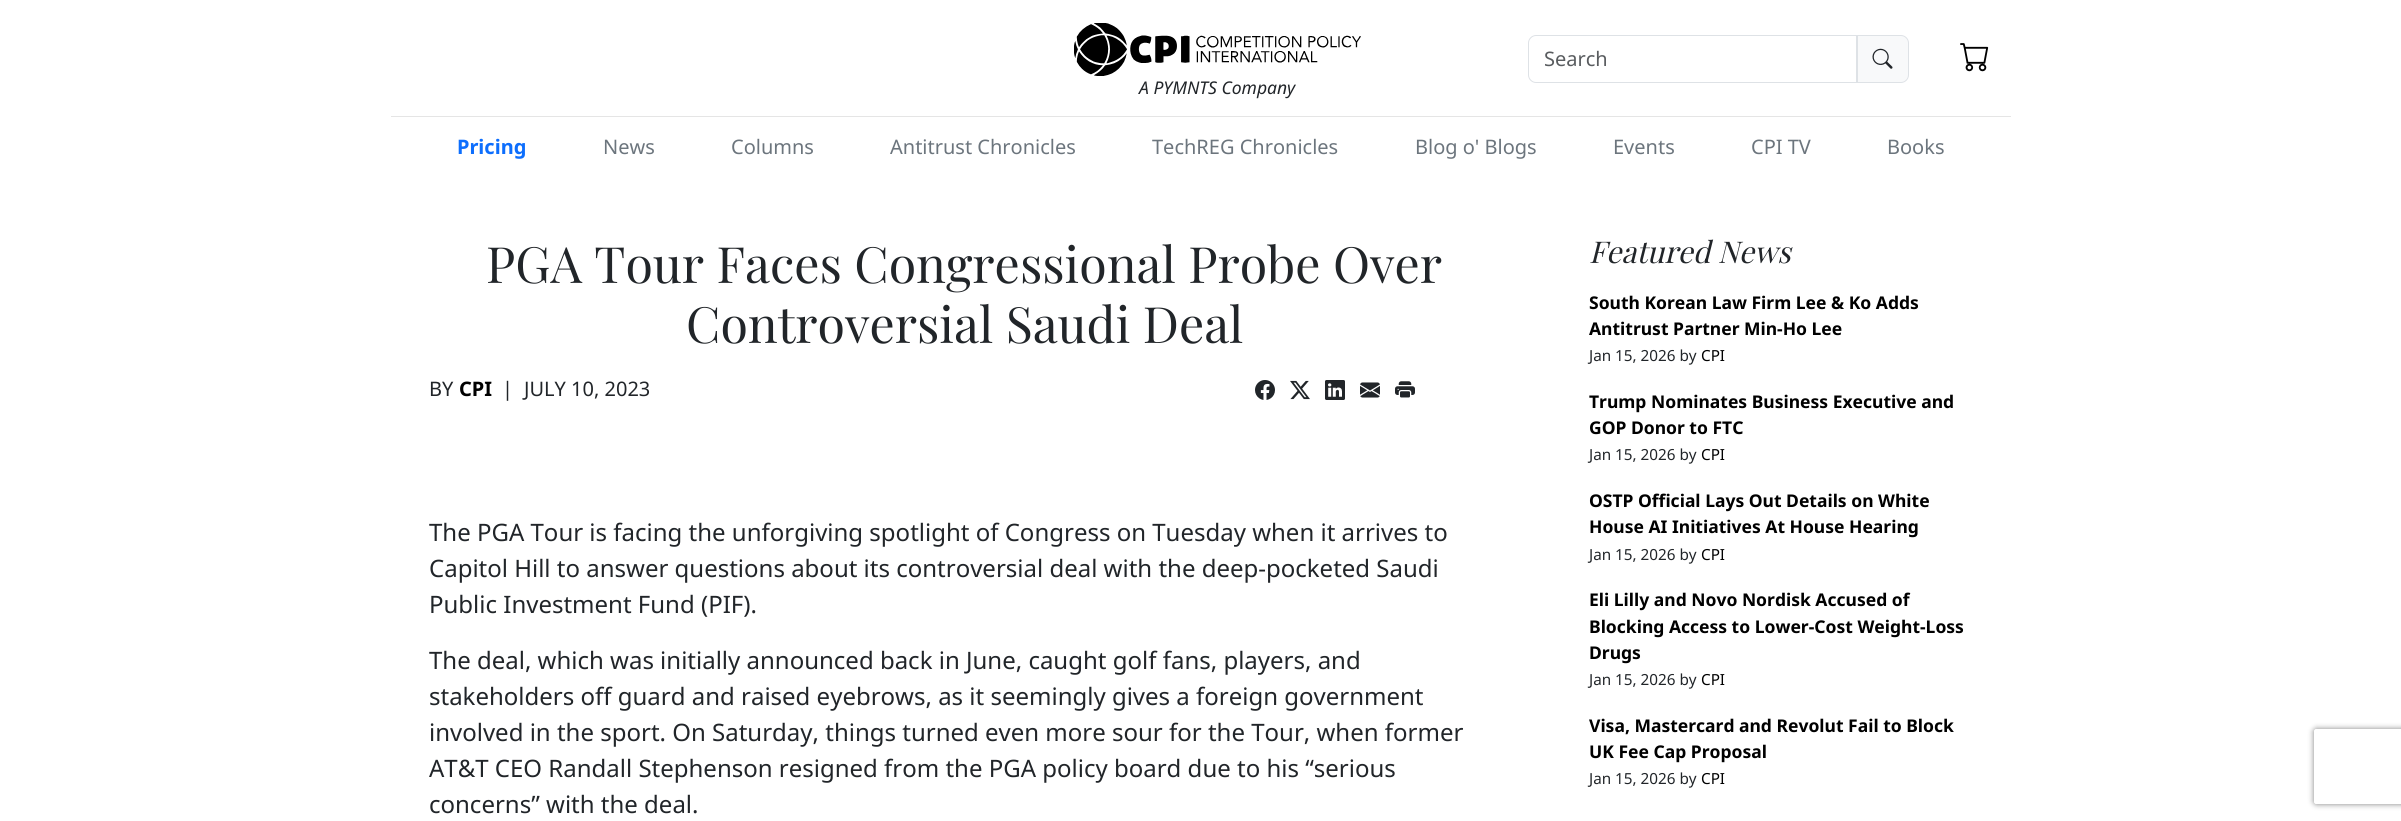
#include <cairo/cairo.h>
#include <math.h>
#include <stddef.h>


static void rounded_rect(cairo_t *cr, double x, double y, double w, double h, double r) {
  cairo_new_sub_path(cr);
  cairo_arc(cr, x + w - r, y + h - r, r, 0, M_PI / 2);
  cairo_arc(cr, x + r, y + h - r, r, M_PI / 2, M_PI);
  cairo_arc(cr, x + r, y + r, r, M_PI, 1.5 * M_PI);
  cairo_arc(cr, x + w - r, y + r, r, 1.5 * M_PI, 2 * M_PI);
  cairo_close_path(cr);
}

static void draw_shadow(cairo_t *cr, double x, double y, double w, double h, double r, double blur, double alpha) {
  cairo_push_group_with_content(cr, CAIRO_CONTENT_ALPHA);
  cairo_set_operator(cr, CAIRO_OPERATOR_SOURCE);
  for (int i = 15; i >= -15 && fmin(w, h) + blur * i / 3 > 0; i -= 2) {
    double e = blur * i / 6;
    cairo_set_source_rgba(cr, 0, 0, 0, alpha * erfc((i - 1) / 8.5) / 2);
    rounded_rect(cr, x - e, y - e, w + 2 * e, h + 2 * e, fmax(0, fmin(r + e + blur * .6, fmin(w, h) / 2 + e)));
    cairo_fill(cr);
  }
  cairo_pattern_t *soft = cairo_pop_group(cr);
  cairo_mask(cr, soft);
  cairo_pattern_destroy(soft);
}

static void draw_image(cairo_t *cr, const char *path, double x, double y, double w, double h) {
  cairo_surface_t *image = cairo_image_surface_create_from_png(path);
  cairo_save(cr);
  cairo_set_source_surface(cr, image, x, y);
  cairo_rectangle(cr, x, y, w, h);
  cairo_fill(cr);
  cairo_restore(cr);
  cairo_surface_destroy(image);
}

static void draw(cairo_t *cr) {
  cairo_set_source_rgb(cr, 1, 1, 1);
  cairo_paint(cr);
  cairo_set_source_rgb(cr, 229 / 255.0, 229 / 255.0, 229 / 255.0);
  cairo_rectangle(cr, 391, 116, 1620, 1);
  cairo_fill(cr);
  cairo_set_source_rgb(cr, 248 / 255.0, 249 / 255.0, 250 / 255.0);
  cairo_new_path(cr);
  cairo_move_to(cr, 1856.5, 35.5);
  cairo_line_to(cr, 1901, 35.5);
  cairo_curve_to(cr, 1905, 35.5, 1908.5, 39, 1908.5, 43);
  cairo_line_to(cr, 1908.5, 75);
  cairo_curve_to(cr, 1908.5, 79, 1905, 82.5, 1901, 82.5);
  cairo_line_to(cr, 1856.5, 82.5);
  cairo_close_path(cr);
  cairo_fill_preserve(cr);
  cairo_set_source_rgb(cr, 222 / 255.0, 226 / 255.0, 230 / 255.0);
  cairo_set_line_width(cr, 1);
  cairo_stroke(cr);
  cairo_new_path(cr);
  cairo_move_to(cr, 1536, 35.5);
  cairo_line_to(cr, 1857.5, 35.5);
  cairo_line_to(cr, 1857.5, 82.5);
  cairo_line_to(cr, 1536, 82.5);
  cairo_curve_to(cr, 1532, 82.5, 1528.5, 79, 1528.5, 75);
  cairo_line_to(cr, 1528.5, 43);
  cairo_curve_to(cr, 1528.5, 39, 1532, 35.5, 1536, 35.5);
  cairo_close_path(cr);
  cairo_stroke(cr);
  draw_image(cr, "images/1.png", 1872, 48, 21, 21);
  draw_image(cr, "images/2.png", 1960, 43, 29, 29);
  draw_image(cr, "images/3.png", 1074, 23, 287, 53);
  draw_image(cr, "images/4.png", 1255, 380, 20, 20);
  draw_image(cr, "images/5.png", 1290, 380, 20, 20);
  draw_image(cr, "images/6.png", 1325, 380, 20, 20);
  draw_image(cr, "images/7.png", 1360, 382, 20, 16);
  draw_image(cr, "images/8.png", 1395, 381, 20, 17);
  cairo_save(cr);
  cairo_set_fill_rule(cr, CAIRO_FILL_RULE_EVEN_ODD);
  cairo_new_path(cr);
  cairo_move_to(cr, 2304, 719);
  cairo_line_to(cr, 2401, 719);
  cairo_line_to(cr, 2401, 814);
  cairo_line_to(cr, 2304, 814);
  cairo_close_path(cr);
  cairo_move_to(cr, 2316.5, 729);
  cairo_line_to(cr, 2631.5, 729);
  cairo_curve_to(cr, 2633, 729, 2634, 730, 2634, 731.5);
  cairo_line_to(cr, 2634, 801.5);
  cairo_curve_to(cr, 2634, 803, 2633, 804, 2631.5, 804);
  cairo_line_to(cr, 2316.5, 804);
  cairo_curve_to(cr, 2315, 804, 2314, 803, 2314, 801.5);
  cairo_line_to(cr, 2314, 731.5);
  cairo_curve_to(cr, 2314, 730, 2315, 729, 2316.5, 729);
  cairo_close_path(cr);
  cairo_clip(cr);
  cairo_set_source_rgb(cr, 128 / 255.0, 128 / 255.0, 128 / 255.0);
  draw_shadow(cr, 2314, 729, 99, 75, 2.5, 3, 1);
  cairo_restore(cr);
  cairo_select_font_face(cr, "Noto Sans", CAIRO_FONT_SLANT_NORMAL, CAIRO_FONT_WEIGHT_NORMAL);
  cairo_set_font_size(cr, 20);
  cairo_set_source_rgb(cr, 89 / 255.0, 92 / 255.0, 95 / 255.0);
  cairo_move_to(cr, 1544, 66);
  cairo_show_text(cr, "Search");
  cairo_select_font_face(cr, "Noto Sans", CAIRO_FONT_SLANT_ITALIC, CAIRO_FONT_WEIGHT_NORMAL);
  cairo_set_font_size(cr, 17.5);
  cairo_set_source_rgb(cr, 33 / 255.0, 37 / 255.0, 41 / 255.0);
  cairo_move_to(cr, 1139, 94);
  cairo_show_text(cr, "A PYMNTS Company");
  cairo_select_font_face(cr, "Noto Sans", CAIRO_FONT_SLANT_NORMAL, CAIRO_FONT_WEIGHT_BOLD);
  cairo_set_font_size(cr, 20);
  cairo_set_source_rgb(cr, 13 / 255.0, 110 / 255.0, 253 / 255.0);
  cairo_move_to(cr, 457, 154);
  cairo_show_text(cr, "Pricing");
  cairo_select_font_face(cr, "Noto Sans", CAIRO_FONT_SLANT_NORMAL, CAIRO_FONT_WEIGHT_NORMAL);
  cairo_set_source_rgb(cr, 108 / 255.0, 117 / 255.0, 125 / 255.0);
  cairo_move_to(cr, 603, 154);
  cairo_show_text(cr, "News");
  cairo_move_to(cr, 731, 154);
  cairo_show_text(cr, "Columns");
  cairo_move_to(cr, 890, 154);
  cairo_show_text(cr, "Antitrust Chronicles");
  cairo_move_to(cr, 1152, 154);
  cairo_show_text(cr, "TechREG Chronicles");
  cairo_move_to(cr, 1415, 154);
  cairo_show_text(cr, "Blog o' Blogs");
  cairo_move_to(cr, 1613, 154);
  cairo_show_text(cr, "Events");
  cairo_move_to(cr, 1751, 154);
  cairo_show_text(cr, "CPI TV");
  cairo_move_to(cr, 1887, 154);
  cairo_show_text(cr, "Books");
  cairo_select_font_face(cr, "Playfair Display", CAIRO_FONT_SLANT_NORMAL, CAIRO_FONT_WEIGHT_NORMAL);
  cairo_set_font_size(cr, 50);
  cairo_set_source_rgb(cr, 33 / 255.0, 37 / 255.0, 41 / 255.0);
  cairo_move_to(cr, 486, 283);
  cairo_show_text(cr, "PGA Tour Faces Congressional Probe Over");
  cairo_move_to(cr, 686, 343);
  cairo_show_text(cr, "Controversial Saudi Deal");
  cairo_select_font_face(cr, "Noto Sans", CAIRO_FONT_SLANT_NORMAL, CAIRO_FONT_WEIGHT_NORMAL);
  cairo_set_font_size(cr, 20);
  cairo_move_to(cr, 429, 396);
  cairo_show_text(cr, "BY");
  cairo_select_font_face(cr, "Noto Sans", CAIRO_FONT_SLANT_NORMAL, CAIRO_FONT_WEIGHT_BOLD);
  cairo_set_source_rgb(cr, 0, 0, 0);
  cairo_move_to(cr, 459, 396);
  cairo_show_text(cr, "CPI");
  cairo_select_font_face(cr, "Noto Sans", CAIRO_FONT_SLANT_NORMAL, CAIRO_FONT_WEIGHT_NORMAL);
  cairo_set_source_rgb(cr, 33 / 255.0, 37 / 255.0, 41 / 255.0);
  cairo_move_to(cr, 502, 396);
  cairo_show_text(cr, "|");
  cairo_move_to(cr, 524, 396);
  cairo_show_text(cr, "JULY 10, 2023");
  cairo_set_font_size(cr, 24);
  cairo_move_to(cr, 429, 541);
  cairo_show_text(cr, "The PGA Tour is facing the unforgiving spotlight of Congress on Tuesday when it arrives to");
  cairo_move_to(cr, 429, 577);
  cairo_show_text(cr, "Capitol Hill to answer questions about its controversial deal with the deep-pocketed Saudi");
  cairo_move_to(cr, 429, 613);
  cairo_show_text(cr, "Public Investment Fund (PIF).");
  cairo_move_to(cr, 429, 669);
  cairo_show_text(cr, "The deal, which was initially announced back in June, caught golf fans, players, and");
  cairo_move_to(cr, 429, 705);
  cairo_show_text(cr, "stakeholders off guard and raised eyebrows, as it seemingly gives a foreign government");
  cairo_move_to(cr, 429, 741);
  cairo_show_text(cr, "involved in the sport. On Saturday, things turned even more sour for the Tour, when former");
  cairo_move_to(cr, 429, 777);
  cairo_show_text(cr, "AT&T CEO Randall Stephenson resigned from the PGA policy board due to his “serious");
  cairo_move_to(cr, 429, 813);
  cairo_show_text(cr, "concerns” with the deal.");
  cairo_select_font_face(cr, "Playfair Display", CAIRO_FONT_SLANT_ITALIC, CAIRO_FONT_WEIGHT_NORMAL);
  cairo_set_font_size(cr, 30);
  cairo_move_to(cr, 1589, 263);
  cairo_show_text(cr, "Featured News");
  cairo_select_font_face(cr, "Noto Sans", CAIRO_FONT_SLANT_NORMAL, CAIRO_FONT_WEIGHT_BOLD);
  cairo_set_font_size(cr, 17.5);
  cairo_set_source_rgb(cr, 0, 0, 0);
  cairo_move_to(cr, 1589, 309);
  cairo_show_text(cr, "South Korean Law Firm Lee & Ko Adds");
  cairo_move_to(cr, 1589, 335);
  cairo_show_text(cr, "Antitrust Partner Min-Ho Lee");
  cairo_select_font_face(cr, "Noto Sans", CAIRO_FONT_SLANT_NORMAL, CAIRO_FONT_WEIGHT_NORMAL);
  cairo_set_font_size(cr, 15.25);
  cairo_set_source_rgb(cr, 33 / 255.0, 37 / 255.0, 41 / 255.0);
  cairo_move_to(cr, 1589, 361);
  cairo_show_text(cr, "Jan 15, 2026 by");
  cairo_set_source_rgb(cr, 0, 0, 0);
  cairo_move_to(cr, 1701, 361);
  cairo_show_text(cr, "CPI");
  cairo_select_font_face(cr, "Noto Sans", CAIRO_FONT_SLANT_NORMAL, CAIRO_FONT_WEIGHT_BOLD);
  cairo_set_font_size(cr, 17.5);
  cairo_move_to(cr, 1589, 408);
  cairo_show_text(cr, "Trump Nominates Business Executive and");
  cairo_move_to(cr, 1589, 434);
  cairo_show_text(cr, "GOP Donor to FTC");
  cairo_select_font_face(cr, "Noto Sans", CAIRO_FONT_SLANT_NORMAL, CAIRO_FONT_WEIGHT_NORMAL);
  cairo_set_font_size(cr, 15.25);
  cairo_set_source_rgb(cr, 33 / 255.0, 37 / 255.0, 41 / 255.0);
  cairo_move_to(cr, 1589, 460);
  cairo_show_text(cr, "Jan 15, 2026 by");
  cairo_set_source_rgb(cr, 0, 0, 0);
  cairo_move_to(cr, 1701, 460);
  cairo_show_text(cr, "CPI");
  cairo_select_font_face(cr, "Noto Sans", CAIRO_FONT_SLANT_NORMAL, CAIRO_FONT_WEIGHT_BOLD);
  cairo_set_font_size(cr, 17.5);
  cairo_move_to(cr, 1589, 507);
  cairo_show_text(cr, "OSTP Official Lays Out Details on White");
  cairo_move_to(cr, 1589, 533);
  cairo_show_text(cr, "House AI Initiatives At House Hearing");
  cairo_select_font_face(cr, "Noto Sans", CAIRO_FONT_SLANT_NORMAL, CAIRO_FONT_WEIGHT_NORMAL);
  cairo_set_font_size(cr, 15.25);
  cairo_set_source_rgb(cr, 33 / 255.0, 37 / 255.0, 41 / 255.0);
  cairo_move_to(cr, 1589, 560);
  cairo_show_text(cr, "Jan 15, 2026 by");
  cairo_set_source_rgb(cr, 0, 0, 0);
  cairo_move_to(cr, 1701, 560);
  cairo_show_text(cr, "CPI");
  cairo_select_font_face(cr, "Noto Sans", CAIRO_FONT_SLANT_NORMAL, CAIRO_FONT_WEIGHT_BOLD);
  cairo_set_font_size(cr, 17.5);
  cairo_move_to(cr, 1589, 606);
  cairo_show_text(cr, "Eli Lilly and Novo Nordisk Accused of");
  cairo_move_to(cr, 1589, 633);
  cairo_show_text(cr, "Blocking Access to Lower-Cost Weight-Loss");
  cairo_move_to(cr, 1589, 659);
  cairo_show_text(cr, "Drugs");
  cairo_select_font_face(cr, "Noto Sans", CAIRO_FONT_SLANT_NORMAL, CAIRO_FONT_WEIGHT_NORMAL);
  cairo_set_font_size(cr, 15.25);
  cairo_set_source_rgb(cr, 33 / 255.0, 37 / 255.0, 41 / 255.0);
  cairo_move_to(cr, 1589, 685);
  cairo_show_text(cr, "Jan 15, 2026 by");
  cairo_set_source_rgb(cr, 0, 0, 0);
  cairo_move_to(cr, 1701, 685);
  cairo_show_text(cr, "CPI");
  cairo_select_font_face(cr, "Noto Sans", CAIRO_FONT_SLANT_NORMAL, CAIRO_FONT_WEIGHT_BOLD);
  cairo_set_font_size(cr, 17.5);
  cairo_move_to(cr, 1589, 732);
  cairo_show_text(cr, "Visa, Mastercard and Revolut Fail to Block");
  cairo_move_to(cr, 1589, 758);
  cairo_show_text(cr, "UK Fee Cap Proposal");
  cairo_select_font_face(cr, "Noto Sans", CAIRO_FONT_SLANT_NORMAL, CAIRO_FONT_WEIGHT_NORMAL);
  cairo_set_font_size(cr, 15.25);
  cairo_set_source_rgb(cr, 33 / 255.0, 37 / 255.0, 41 / 255.0);
  cairo_move_to(cr, 1589, 784);
  cairo_show_text(cr, "Jan 15, 2026 by");
  cairo_set_source_rgb(cr, 0, 0, 0);
  cairo_move_to(cr, 1701, 784);
  cairo_show_text(cr, "CPI");
}

int main(void) {
  cairo_surface_t *surface = cairo_image_surface_create(CAIRO_FORMAT_RGB24, 2401, 821);
  cairo_t *cr = cairo_create(surface);
  cairo_font_options_t *options = cairo_font_options_create();
  cairo_font_options_set_hint_metrics(options, CAIRO_HINT_METRICS_OFF);
  cairo_font_options_set_hint_style(options, CAIRO_HINT_STYLE_NONE);
  cairo_set_font_options(cr, options);
  cairo_set_miter_limit(cr, 4);
  draw(cr);
  cairo_surface_write_to_png(surface, "out.png");
  cairo_font_options_destroy(options);
  cairo_destroy(cr);
  cairo_surface_destroy(surface);
  return 0;
}
